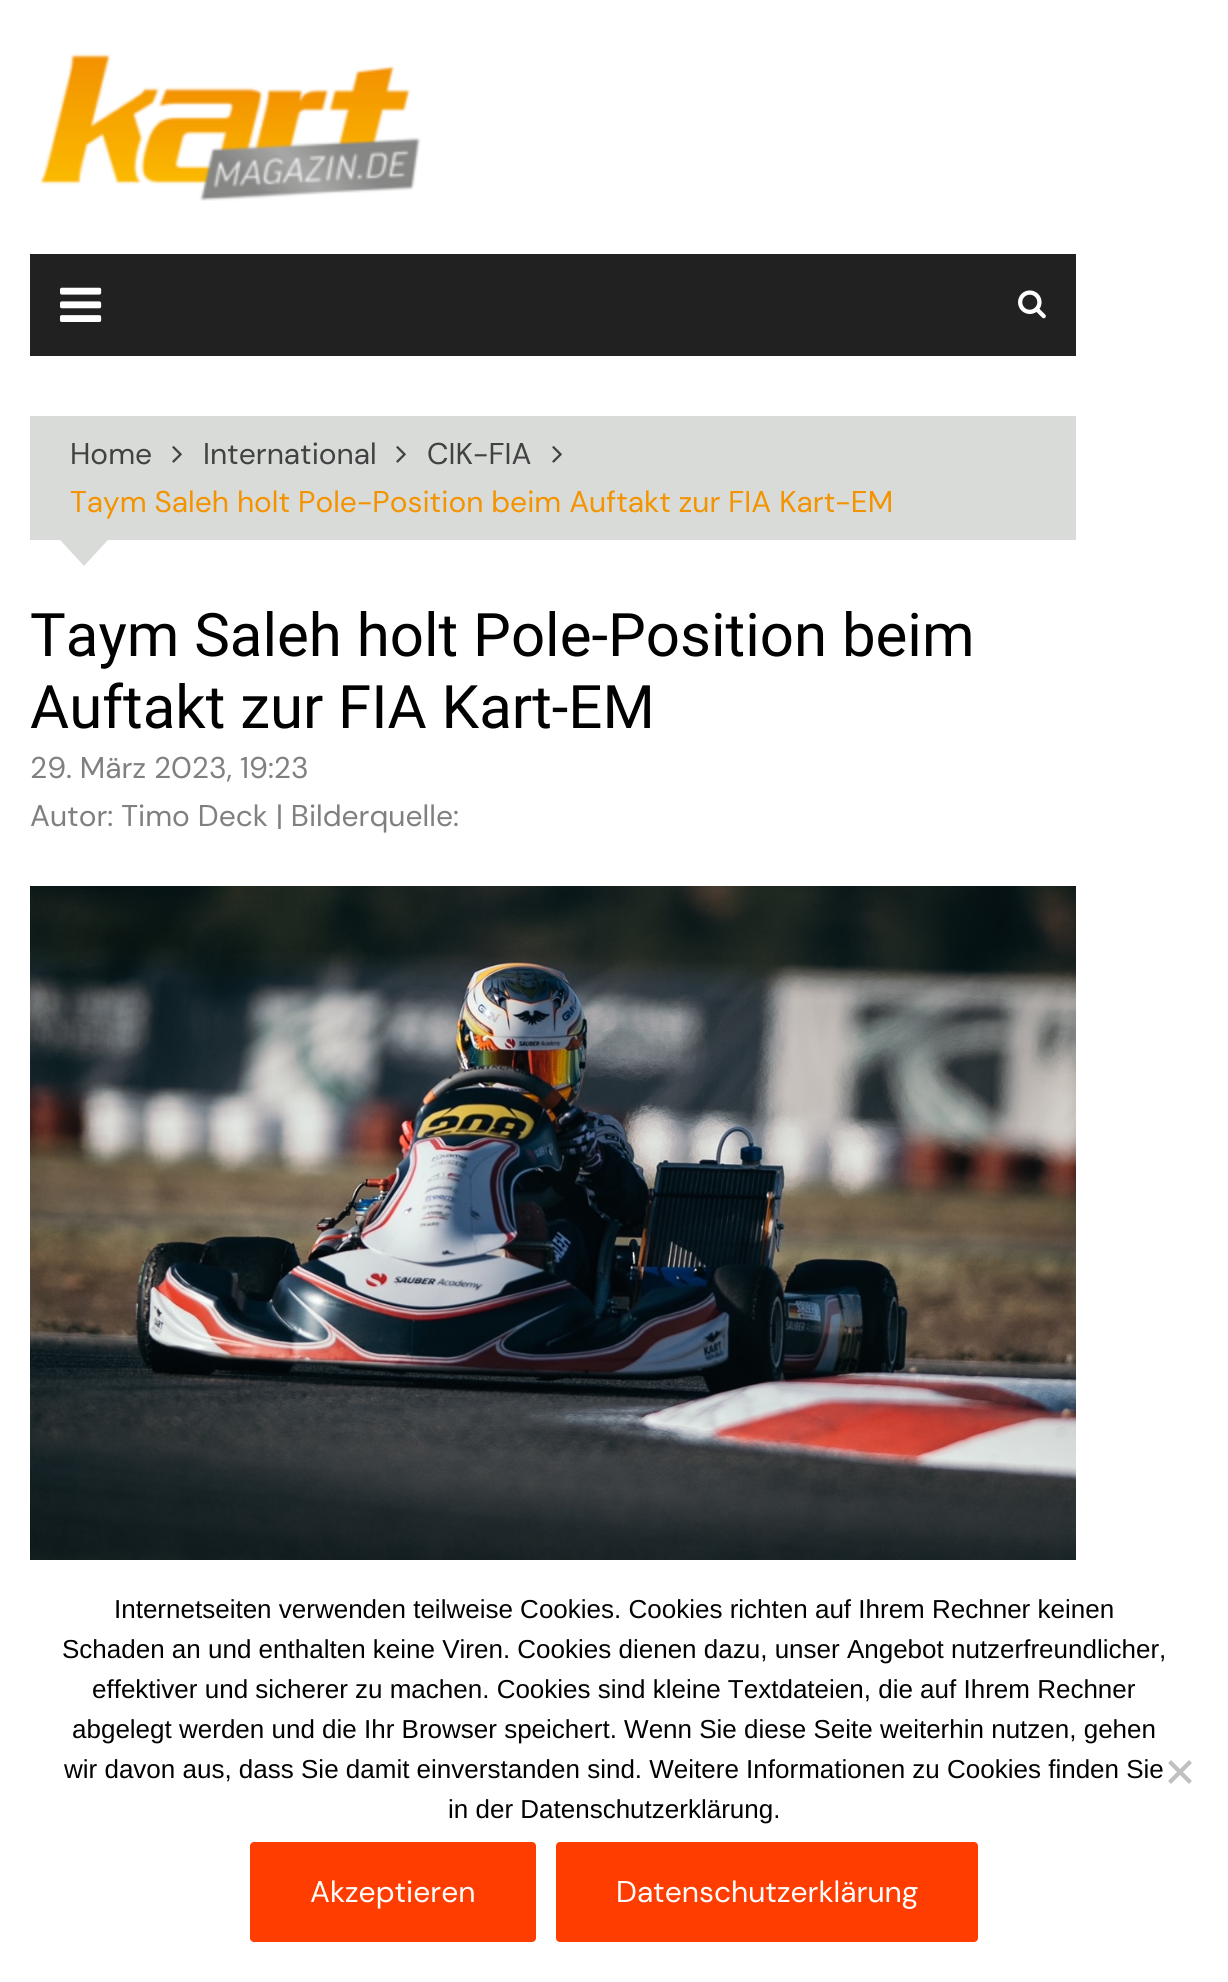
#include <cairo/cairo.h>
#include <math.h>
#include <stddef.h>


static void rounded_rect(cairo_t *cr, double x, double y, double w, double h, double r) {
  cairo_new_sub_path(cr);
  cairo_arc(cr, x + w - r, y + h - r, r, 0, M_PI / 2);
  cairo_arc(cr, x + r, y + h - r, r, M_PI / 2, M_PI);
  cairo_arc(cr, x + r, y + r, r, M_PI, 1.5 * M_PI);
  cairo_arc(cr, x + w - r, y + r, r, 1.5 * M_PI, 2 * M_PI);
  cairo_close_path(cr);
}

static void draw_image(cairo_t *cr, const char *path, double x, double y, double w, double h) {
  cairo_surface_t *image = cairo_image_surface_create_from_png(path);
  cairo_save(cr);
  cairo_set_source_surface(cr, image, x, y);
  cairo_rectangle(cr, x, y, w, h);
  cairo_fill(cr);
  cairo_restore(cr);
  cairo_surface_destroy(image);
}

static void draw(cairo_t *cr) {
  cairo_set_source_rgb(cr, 1, 1, 1);
  cairo_paint(cr);
  draw_image(cr, "images/1.png", 39, 53, 382, 148);
  cairo_set_source_rgb(cr, 33 / 255.0, 33 / 255.0, 33 / 255.0);
  cairo_rectangle(cr, 30, 254, 1046, 102);
  cairo_fill(cr);
  draw_image(cr, "images/2.png", 60, 287, 42, 35);
  draw_image(cr, "images/3.png", 1018, 290, 28, 29);
  cairo_set_source_rgb(cr, 217 / 255.0, 219 / 255.0, 217 / 255.0);
  cairo_rectangle(cr, 30, 416, 1046, 124);
  cairo_fill(cr);
  draw_image(cr, "images/4.png", 172, 446, 10, 17);
  draw_image(cr, "images/4.png", 396, 446, 10, 17);
  draw_image(cr, "images/4.png", 552, 446, 10, 17);
  cairo_new_path(cr);
  cairo_move_to(cr, 60, 540);
  cairo_line_to(cr, 108, 540);
  cairo_line_to(cr, 84, 566);
  cairo_close_path(cr);
  cairo_fill(cr);
  draw_image(cr, "images/5.png", 30, 886, 1046, 674);
  cairo_set_source_rgb(cr, 192 / 255.0, 192 / 255.0, 192 / 255.0);
  cairo_new_path(cr);
  cairo_move_to(cr, 1189, 1760);
  cairo_line_to(cr, 1192, 1763);
  cairo_line_to(cr, 1171, 1784);
  cairo_line_to(cr, 1168, 1781);
  cairo_close_path(cr);
  cairo_fill(cr);
  cairo_new_path(cr);
  cairo_move_to(cr, 1168, 1763);
  cairo_line_to(cr, 1171, 1760);
  cairo_line_to(cr, 1192, 1781);
  cairo_line_to(cr, 1189, 1784);
  cairo_close_path(cr);
  cairo_fill(cr);
  cairo_set_source_rgb(cr, 1, 61 / 255.0, 0);
  rounded_rect(cr, 250, 1842, 286, 100, 4);
  cairo_fill(cr);
  rounded_rect(cr, 556, 1842, 422, 100, 4);
  cairo_fill(cr);
  cairo_select_font_face(cr, "DM Sans", CAIRO_FONT_SLANT_NORMAL, CAIRO_FONT_WEIGHT_NORMAL);
  cairo_set_font_size(cr, 30);
  cairo_set_source_rgb(cr, 65 / 255.0, 66 / 255.0, 65 / 255.0);
  cairo_move_to(cr, 70, 464);
  cairo_show_text(cr, "Home");
  cairo_move_to(cr, 203, 464);
  cairo_show_text(cr, "International");
  cairo_move_to(cr, 427, 464);
  cairo_show_text(cr, "CIK-FIA");
  cairo_set_source_rgb(cr, 243 / 255.0, 147 / 255.0, 0);
  cairo_move_to(cr, 70, 512);
  cairo_show_text(cr, "Taym Saleh holt Pole-Position beim Auftakt zur FIA Kart-EM");
  cairo_select_font_face(cr, "Roboto", CAIRO_FONT_SLANT_NORMAL, CAIRO_FONT_WEIGHT_NORMAL);
  cairo_set_font_size(cr, 60);
  cairo_set_source_rgb(cr, 1 / 255.0, 1 / 255.0, 1 / 255.0);
  cairo_move_to(cr, 30, 656);
  cairo_show_text(cr, "Taym Saleh holt Pole-Position beim");
  cairo_move_to(cr, 30, 728);
  cairo_show_text(cr, "Auftakt zur FIA Kart-EM");
  cairo_select_font_face(cr, "DM Sans", CAIRO_FONT_SLANT_NORMAL, CAIRO_FONT_WEIGHT_NORMAL);
  cairo_set_font_size(cr, 30);
  cairo_set_source_rgb(cr, 128 / 255.0, 128 / 255.0, 128 / 255.0);
  cairo_move_to(cr, 30, 778);
  cairo_show_text(cr, "29. März 2023, 19:23");
  cairo_move_to(cr, 30, 826);
  cairo_show_text(cr, "Autor: Timo Deck | Bilderquelle:");
  cairo_select_font_face(cr, "Liberation Sans", CAIRO_FONT_SLANT_NORMAL, CAIRO_FONT_WEIGHT_NORMAL);
  cairo_set_font_size(cr, 26);
  cairo_set_source_rgb(cr, 1 / 255.0, 1 / 255.0, 1 / 255.0);
  cairo_move_to(cr, 114, 1618);
  cairo_show_text(cr, "Internetseiten verwenden teilweise Cookies. Cookies richten auf Ihrem Rechner keinen");
  cairo_move_to(cr, 62, 1658);
  cairo_show_text(cr, "Schaden an und enthalten keine Viren. Cookies dienen dazu, unser Angebot nutzerfreundlicher,");
  cairo_move_to(cr, 92, 1698);
  cairo_show_text(cr, "effektiver und sicherer zu machen. Cookies sind kleine Textdateien, die auf Ihrem Rechner");
  cairo_move_to(cr, 72, 1738);
  cairo_show_text(cr, "abgelegt werden und die Ihr Browser speichert. Wenn Sie diese Seite weiterhin nutzen, gehen");
  cairo_move_to(cr, 64, 1778);
  cairo_show_text(cr, "wir davon aus, dass Sie damit einverstanden sind. Weitere Informationen zu Cookies finden Sie");
  cairo_move_to(cr, 448, 1818);
  cairo_show_text(cr, "in der Datenschutzerklärung.");
  cairo_select_font_face(cr, "DM Sans", CAIRO_FONT_SLANT_NORMAL, CAIRO_FONT_WEIGHT_NORMAL);
  cairo_set_font_size(cr, 30);
  cairo_set_source_rgb(cr, 1, 1, 1);
  cairo_move_to(cr, 310, 1902);
  cairo_show_text(cr, "Akzeptieren");
  cairo_move_to(cr, 616, 1902);
  cairo_show_text(cr, "Datenschutzerklärung");
}

int main(void) {
  cairo_surface_t *surface = cairo_image_surface_create(CAIRO_FORMAT_RGB24, 1228, 1982);
  cairo_t *cr = cairo_create(surface);
  cairo_font_options_t *options = cairo_font_options_create();
  cairo_font_options_set_hint_metrics(options, CAIRO_HINT_METRICS_OFF);
  cairo_font_options_set_hint_style(options, CAIRO_HINT_STYLE_NONE);
  cairo_set_font_options(cr, options);
  cairo_set_miter_limit(cr, 4);
  draw(cr);
  cairo_surface_write_to_png(surface, "out.png");
  cairo_font_options_destroy(options);
  cairo_destroy(cr);
  cairo_surface_destroy(surface);
  return 0;
}
